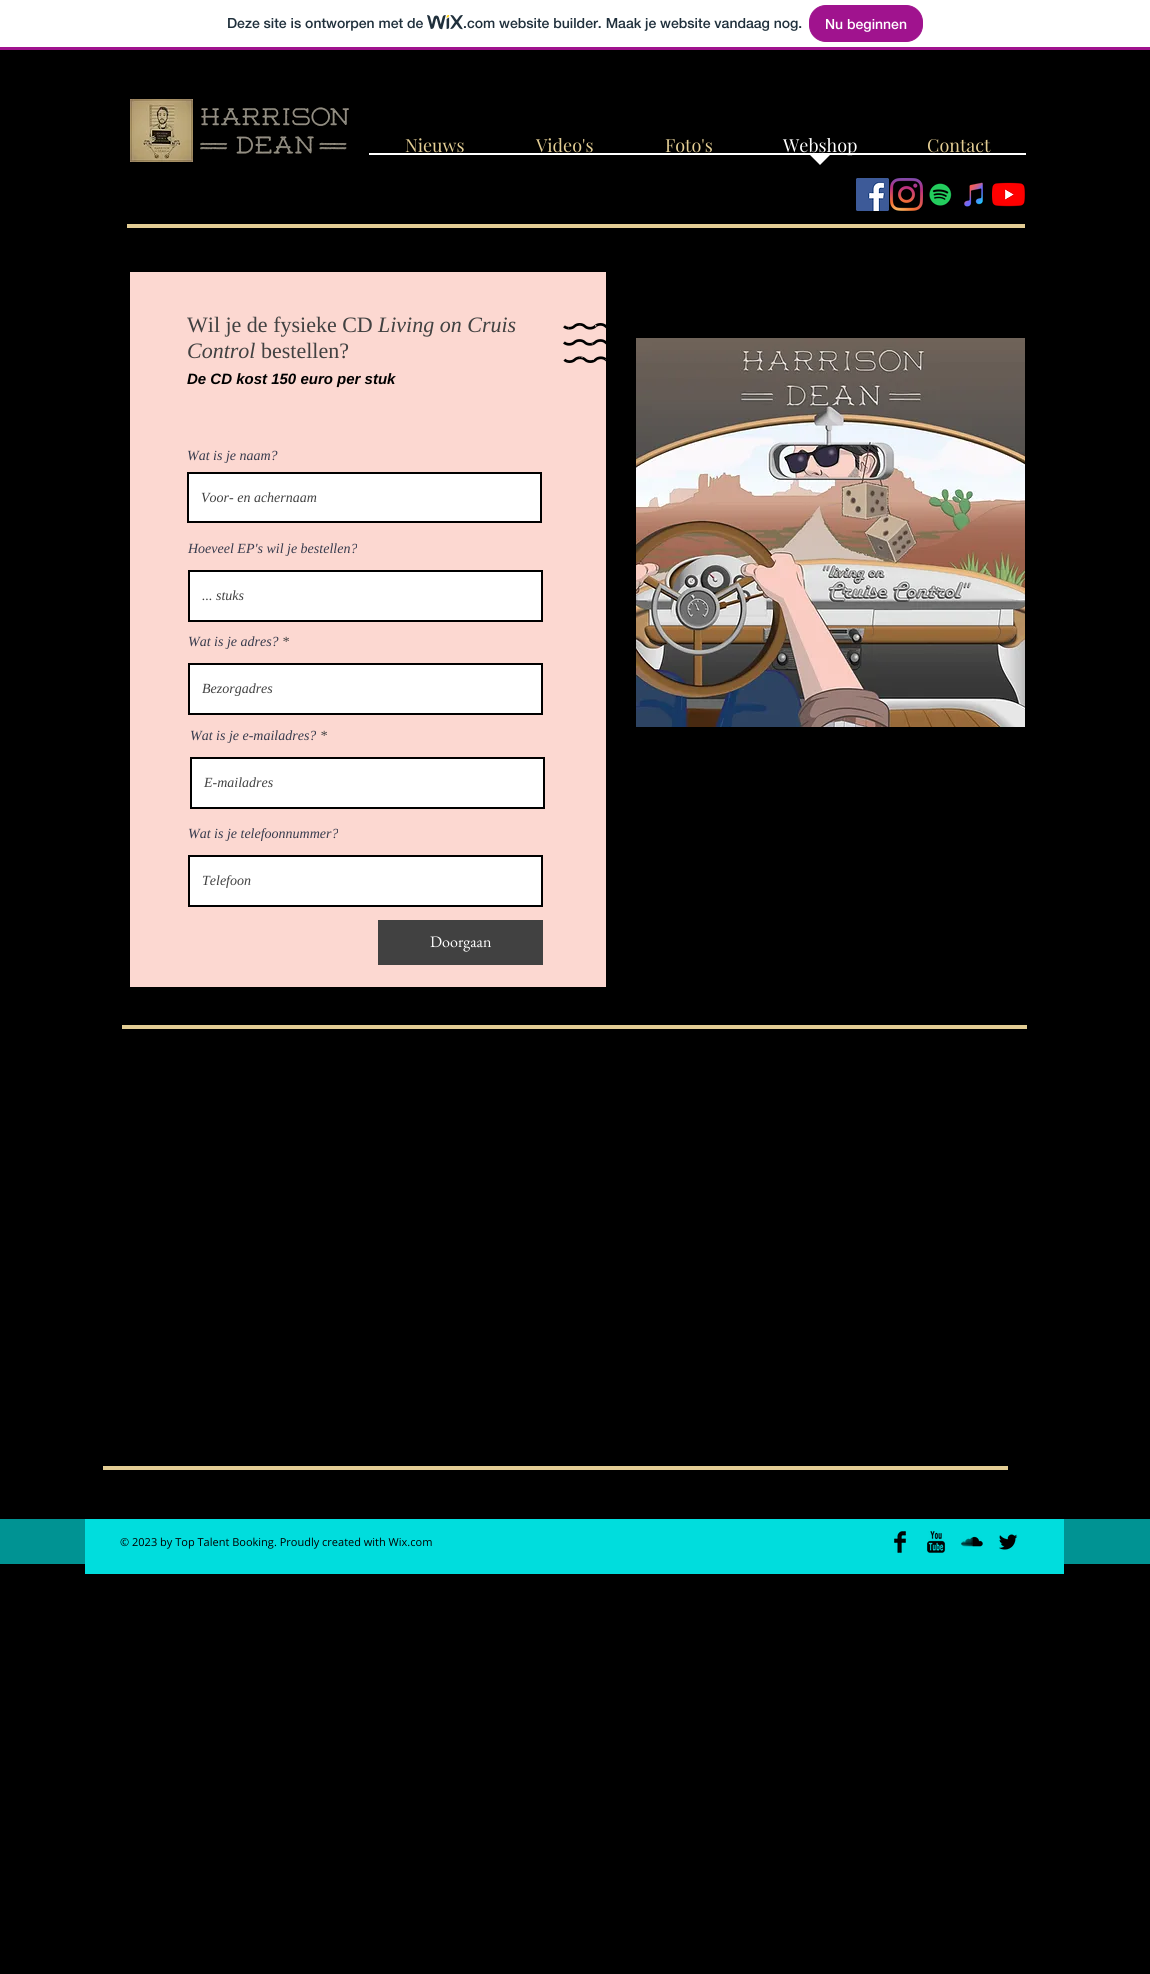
#include <cairo/cairo.h>
#include <math.h>
#include <stddef.h>


static void rounded_rect(cairo_t *cr, double x, double y, double w, double h, double r) {
  cairo_new_sub_path(cr);
  cairo_arc(cr, x + w - r, y + h - r, r, 0, M_PI / 2);
  cairo_arc(cr, x + r, y + h - r, r, M_PI / 2, M_PI);
  cairo_arc(cr, x + r, y + r, r, M_PI, 1.5 * M_PI);
  cairo_arc(cr, x + w - r, y + r, r, 1.5 * M_PI, 2 * M_PI);
  cairo_close_path(cr);
}

static void draw_image(cairo_t *cr, const char *path, double x, double y, double w, double h) {
  cairo_surface_t *image = cairo_image_surface_create_from_png(path);
  cairo_save(cr);
  cairo_set_source_surface(cr, image, x, y);
  cairo_rectangle(cr, x, y, w, h);
  cairo_fill(cr);
  cairo_restore(cr);
  cairo_surface_destroy(image);
}

static void draw(cairo_t *cr) {
  cairo_set_source_rgb(cr, 0, 0, 0);
  cairo_paint(cr);
  cairo_set_source_rgb(cr, 1, 1, 1);
  cairo_rectangle(cr, 0, 0, 1150, 47);
  cairo_fill(cr);
  cairo_set_source_rgb(cr, 160 / 255.0, 19 / 255.0, 142 / 255.0);
  cairo_rectangle(cr, 0, 47, 1150, 3);
  cairo_fill(cr);
  draw_image(cr, "images/1.png", 427, 15, 36, 15);
  rounded_rect(cr, 809.5, 5.5, 113, 36, 16.5);
  cairo_fill_preserve(cr);
  cairo_set_line_width(cr, 1);
  cairo_stroke(cr);
  draw_image(cr, "images/2.png", 130, 99, 63, 63);
  draw_image(cr, "images/3.png", 200, 107, 149, 47);
  cairo_set_source_rgb(cr, 1, 1, 1);
  cairo_rectangle(cr, 369, 154, 657, 1);
  cairo_fill(cr);
  cairo_new_path(cr);
  cairo_move_to(cr, 809, 154);
  cairo_line_to(cr, 831, 154);
  cairo_line_to(cr, 820, 165);
  cairo_close_path(cr);
  cairo_fill(cr);
  cairo_rectangle(cr, 369, 153, 657, 1);
  cairo_fill(cr);
  draw_image(cr, "images/4.png", 856, 178, 33, 33);
  draw_image(cr, "images/5.png", 890, 178, 33, 33);
  draw_image(cr, "images/6.png", 929, 183, 23, 23);
  draw_image(cr, "images/7.png", 964, 182, 19, 25);
  draw_image(cr, "images/8.png", 992, 182, 33, 25);
  cairo_set_source_rgb(cr, 227 / 255.0, 205 / 255.0, 148 / 255.0);
  cairo_rectangle(cr, 127, 224, 898, 4);
  cairo_fill(cr);
  cairo_set_source_rgb(cr, 252 / 255.0, 216 / 255.0, 209 / 255.0);
  cairo_rectangle(cr, 130, 272, 476, 715);
  cairo_fill(cr);
  draw_image(cr, "images/9.png", 563, 323, 43, 40);
  cairo_set_source_rgb(cr, 1, 1, 1);
  cairo_rectangle(cr, 188, 473, 353, 49);
  cairo_fill_preserve(cr);
  cairo_set_source_rgb(cr, 0, 0, 0);
  cairo_set_line_width(cr, 2);
  cairo_stroke(cr);
  cairo_set_source_rgb(cr, 1, 1, 1);
  cairo_rectangle(cr, 189, 571, 353, 50);
  cairo_fill_preserve(cr);
  cairo_set_source_rgb(cr, 0, 0, 0);
  cairo_stroke(cr);
  cairo_set_source_rgb(cr, 1, 1, 1);
  cairo_rectangle(cr, 189, 664, 353, 50);
  cairo_fill_preserve(cr);
  cairo_set_source_rgb(cr, 0, 0, 0);
  cairo_stroke(cr);
  cairo_set_source_rgb(cr, 1, 1, 1);
  cairo_rectangle(cr, 191, 758, 353, 50);
  cairo_fill_preserve(cr);
  cairo_set_source_rgb(cr, 0, 0, 0);
  cairo_stroke(cr);
  cairo_set_source_rgb(cr, 1, 1, 1);
  cairo_rectangle(cr, 189, 856, 353, 50);
  cairo_fill_preserve(cr);
  cairo_set_source_rgb(cr, 0, 0, 0);
  cairo_stroke(cr);
  cairo_set_source_rgb(cr, 65 / 255.0, 65 / 255.0, 65 / 255.0);
  cairo_rectangle(cr, 378, 920, 165, 45);
  cairo_fill(cr);
  draw_image(cr, "images/10.png", 636, 338, 389, 389);
  cairo_set_source_rgb(cr, 227 / 255.0, 205 / 255.0, 148 / 255.0);
  cairo_rectangle(cr, 122, 1025, 905, 4);
  cairo_fill(cr);
  cairo_rectangle(cr, 103, 1466, 905, 4);
  cairo_fill(cr);
  cairo_set_source_rgb(cr, 0, 147 / 255.0, 147 / 255.0);
  cairo_rectangle(cr, 0, 1519, 1150, 45);
  cairo_fill(cr);
  cairo_set_source_rgb(cr, 0, 221 / 255.0, 221 / 255.0);
  cairo_rectangle(cr, 85, 1519, 979, 55);
  cairo_fill(cr);
  draw_image(cr, "images/11.png", 894, 1531, 12, 22);
  draw_image(cr, "images/12.png", 927, 1531, 19, 22);
  draw_image(cr, "images/13.png", 961, 1536, 22, 11);
  draw_image(cr, "images/14.png", 999, 1534, 19, 16);
  cairo_select_font_face(cr, "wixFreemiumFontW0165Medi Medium", CAIRO_FONT_SLANT_NORMAL, CAIRO_FONT_WEIGHT_NORMAL);
  cairo_set_font_size(cr, 14);
  cairo_set_source_rgb(cr, 32 / 255.0, 48 / 255.0, 60 / 255.0);
  cairo_move_to(cr, 227, 28);
  cairo_show_text(cr, "Deze site is ontworpen met de");
  cairo_move_to(cr, 463, 28);
  cairo_show_text(cr, ".com website builder. Maak je website vandaag nog.");
  cairo_set_source_rgb(cr, 1, 1, 1);
  cairo_move_to(cr, 825, 29);
  cairo_show_text(cr, "Nu beginnen");
  cairo_select_font_face(cr, "Playfair Display", CAIRO_FONT_SLANT_NORMAL, CAIRO_FONT_WEIGHT_NORMAL);
  cairo_set_font_size(cr, 18);
  cairo_set_source_rgb(cr, 227 / 255.0, 205 / 255.0, 148 / 255.0);
  cairo_move_to(cr, 405, 152);
  cairo_show_text(cr, "Nieuws");
  cairo_move_to(cr, 536, 152);
  cairo_show_text(cr, "Video's");
  cairo_move_to(cr, 665, 152);
  cairo_show_text(cr, "Foto's");
  cairo_set_source_rgb(cr, 1, 1, 1);
  cairo_move_to(cr, 783, 152);
  cairo_show_text(cr, "Webshop");
  cairo_set_source_rgb(cr, 227 / 255.0, 205 / 255.0, 148 / 255.0);
  cairo_move_to(cr, 927, 152);
  cairo_show_text(cr, "Contact");
  cairo_select_font_face(cr, "Liberation Serif", CAIRO_FONT_SLANT_NORMAL, CAIRO_FONT_WEIGHT_NORMAL);
  cairo_set_font_size(cr, 22);
  cairo_set_source_rgb(cr, 65 / 255.0, 65 / 255.0, 65 / 255.0);
  cairo_move_to(cr, 187, 332);
  cairo_show_text(cr, "Wil je de fysieke CD");
  cairo_select_font_face(cr, "Liberation Serif", CAIRO_FONT_SLANT_ITALIC, CAIRO_FONT_WEIGHT_NORMAL);
  cairo_move_to(cr, 378, 332);
  cairo_show_text(cr, "Living on Cruis");
  cairo_move_to(cr, 187, 358);
  cairo_show_text(cr, "Control");
  cairo_select_font_face(cr, "Liberation Serif", CAIRO_FONT_SLANT_NORMAL, CAIRO_FONT_WEIGHT_NORMAL);
  cairo_move_to(cr, 261, 358);
  cairo_show_text(cr, "bestellen?");
  cairo_select_font_face(cr, "Liberation Sans", CAIRO_FONT_SLANT_ITALIC, CAIRO_FONT_WEIGHT_BOLD);
  cairo_set_font_size(cr, 15);
  cairo_set_source_rgb(cr, 0, 0, 0);
  cairo_move_to(cr, 187, 384);
  cairo_show_text(cr, "De CD kost 150 euro per stuk");
  cairo_select_font_face(cr, "Liberation Serif", CAIRO_FONT_SLANT_ITALIC, CAIRO_FONT_WEIGHT_NORMAL);
  cairo_set_font_size(cr, 14);
  cairo_set_source_rgb(cr, 55 / 255.0, 59 / 255.0, 77 / 255.0);
  cairo_move_to(cr, 187, 460);
  cairo_show_text(cr, "Wat is je naam?");
  cairo_set_source_rgb(cr, 65 / 255.0, 65 / 255.0, 65 / 255.0);
  cairo_move_to(cr, 201, 502);
  cairo_show_text(cr, "Voor- en achernaam");
  cairo_set_source_rgb(cr, 55 / 255.0, 59 / 255.0, 77 / 255.0);
  cairo_move_to(cr, 188, 553);
  cairo_show_text(cr, "Hoeveel EP's wil je bestellen?");
  cairo_set_source_rgb(cr, 65 / 255.0, 65 / 255.0, 65 / 255.0);
  cairo_move_to(cr, 202, 600);
  cairo_show_text(cr, "... stuks");
  cairo_set_source_rgb(cr, 55 / 255.0, 59 / 255.0, 77 / 255.0);
  cairo_move_to(cr, 188, 646);
  cairo_show_text(cr, "Wat is je adres?");
  cairo_set_source_rgb(cr, 65 / 255.0, 65 / 255.0, 65 / 255.0);
  cairo_move_to(cr, 282, 646);
  cairo_show_text(cr, "*");
  cairo_move_to(cr, 202, 693);
  cairo_show_text(cr, "Bezorgadres");
  cairo_set_source_rgb(cr, 55 / 255.0, 59 / 255.0, 77 / 255.0);
  cairo_move_to(cr, 190, 740);
  cairo_show_text(cr, "Wat is je e-mailadres?");
  cairo_set_source_rgb(cr, 65 / 255.0, 65 / 255.0, 65 / 255.0);
  cairo_move_to(cr, 320, 740);
  cairo_show_text(cr, "*");
  cairo_move_to(cr, 204, 787);
  cairo_show_text(cr, "E-mailadres");
  cairo_set_source_rgb(cr, 55 / 255.0, 59 / 255.0, 77 / 255.0);
  cairo_move_to(cr, 188, 838);
  cairo_show_text(cr, "Wat is je telefoonnummer?");
  cairo_set_source_rgb(cr, 65 / 255.0, 65 / 255.0, 65 / 255.0);
  cairo_move_to(cr, 202, 885);
  cairo_show_text(cr, "Telefoon");
  cairo_select_font_face(cr, "EB Garamond", CAIRO_FONT_SLANT_NORMAL, CAIRO_FONT_WEIGHT_NORMAL);
  cairo_set_font_size(cr, 16);
  cairo_set_source_rgb(cr, 1, 1, 1);
  cairo_move_to(cr, 430, 947);
  cairo_show_text(cr, "Doorgaan");
  cairo_select_font_face(cr, "Open Sans", CAIRO_FONT_SLANT_NORMAL, CAIRO_FONT_WEIGHT_NORMAL);
  cairo_set_font_size(cr, 11);
  cairo_set_source_rgb(cr, 0, 0, 0);
  cairo_move_to(cr, 120, 1546);
  cairo_show_text(cr, "© 2023 by Top Talent Booking. Proudly created with Wix.com");
}

int main(void) {
  cairo_surface_t *surface = cairo_image_surface_create(CAIRO_FORMAT_RGB24, 1150, 1974);
  cairo_t *cr = cairo_create(surface);
  cairo_font_options_t *options = cairo_font_options_create();
  cairo_font_options_set_hint_metrics(options, CAIRO_HINT_METRICS_OFF);
  cairo_font_options_set_hint_style(options, CAIRO_HINT_STYLE_NONE);
  cairo_set_font_options(cr, options);
  cairo_set_miter_limit(cr, 4);
  draw(cr);
  cairo_surface_write_to_png(surface, "out.png");
  cairo_font_options_destroy(options);
  cairo_destroy(cr);
  cairo_surface_destroy(surface);
  return 0;
}
